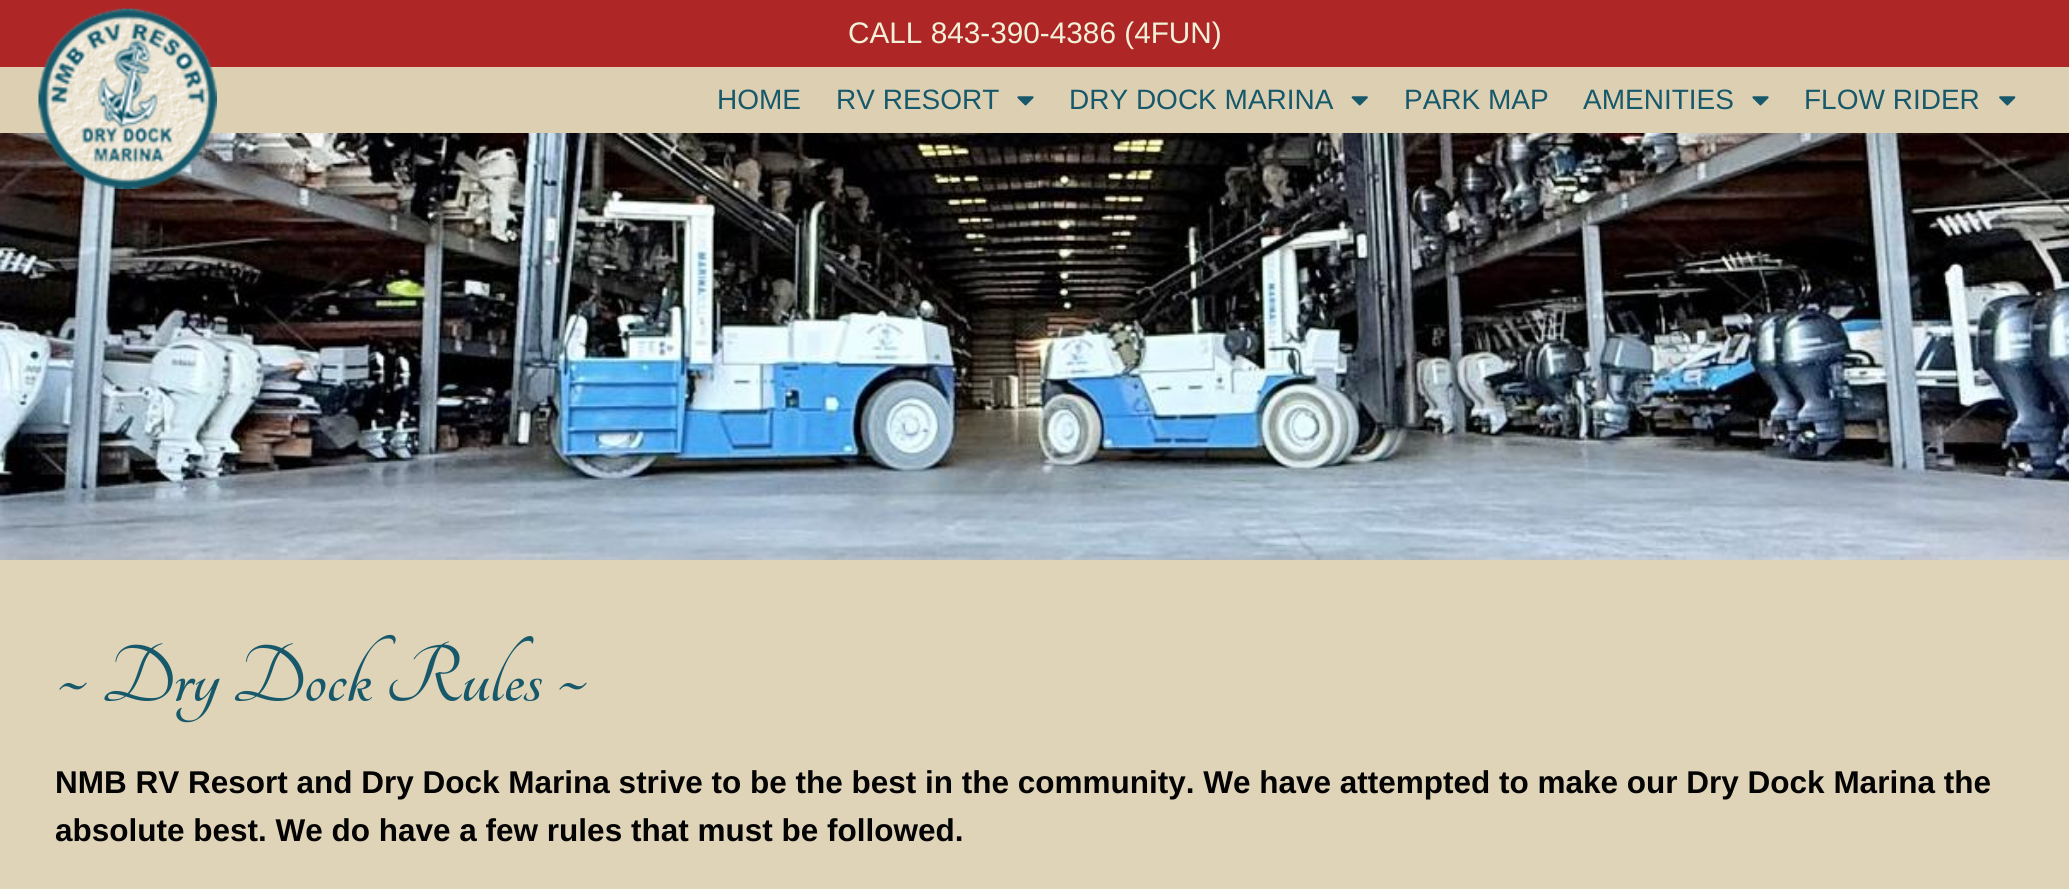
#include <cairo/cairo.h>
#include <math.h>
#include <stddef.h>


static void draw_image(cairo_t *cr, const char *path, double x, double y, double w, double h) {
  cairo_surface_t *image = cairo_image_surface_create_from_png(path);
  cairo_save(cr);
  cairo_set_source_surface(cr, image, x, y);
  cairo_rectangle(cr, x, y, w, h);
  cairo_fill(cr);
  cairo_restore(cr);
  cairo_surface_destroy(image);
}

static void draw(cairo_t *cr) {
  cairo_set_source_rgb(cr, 224 / 255.0, 212 / 255.0, 184 / 255.0);
  cairo_paint(cr);
  cairo_set_source_rgb(cr, 175 / 255.0, 38 / 255.0, 38 / 255.0);
  cairo_rectangle(cr, 0, 0, 2069, 67);
  cairo_fill(cr);
  cairo_set_source_rgb(cr, 221 / 255.0, 208 / 255.0, 178 / 255.0);
  cairo_rectangle(cr, 0, 67, 2069, 66);
  cairo_fill(cr);
  draw_image(cr, "images/5.png", 0, 133, 2069, 427);
  draw_image(cr, "images/1.png", 38, 8, 179, 181);
  draw_image(cr, "images/2.png", 1017, 96, 17, 10);
  draw_image(cr, "images/3.png", 1351, 96, 17, 10);
  draw_image(cr, "images/2.png", 1752, 96, 17, 10);
  draw_image(cr, "images/4.png", 1999, 96, 17, 10);
  cairo_select_font_face(cr, "Liberation Sans", CAIRO_FONT_SLANT_NORMAL, CAIRO_FONT_WEIGHT_NORMAL);
  cairo_set_font_size(cr, 29.75);
  cairo_set_source_rgb(cr, 241 / 255.0, 240 / 255.0, 216 / 255.0);
  cairo_move_to(cr, 848, 43);
  cairo_show_text(cr, "CALL 843-390-4386 (4FUN)");
  cairo_set_font_size(cr, 28);
  cairo_set_source_rgb(cr, 23 / 255.0, 89 / 255.0, 107 / 255.0);
  cairo_move_to(cr, 717, 109);
  cairo_show_text(cr, "HOME");
  cairo_move_to(cr, 836, 109);
  cairo_show_text(cr, "RV RESORT");
  cairo_move_to(cr, 1069, 109);
  cairo_show_text(cr, "DRY DOCK MARINA");
  cairo_move_to(cr, 1404, 109);
  cairo_show_text(cr, "PARK MAP");
  cairo_move_to(cr, 1583, 109);
  cairo_show_text(cr, "AMENITIES");
  cairo_move_to(cr, 1804, 109);
  cairo_show_text(cr, "FLOW RIDER");
  cairo_select_font_face(cr, "Tangerine", CAIRO_FONT_SLANT_NORMAL, CAIRO_FONT_WEIGHT_BOLD);
  cairo_set_font_size(cr, 87.5);
  cairo_move_to(cr, 55, 701);
  cairo_show_text(cr, "~ Dry Dock Rules ~");
  cairo_select_font_face(cr, "Liberation Sans", CAIRO_FONT_SLANT_NORMAL, CAIRO_FONT_WEIGHT_BOLD);
  cairo_set_font_size(cr, 31.5);
  cairo_set_source_rgb(cr, 4 / 255.0, 3 / 255.0, 3 / 255.0);
  cairo_move_to(cr, 55, 793);
  cairo_show_text(cr, "NMB RV Resort and Dry Dock Marina strive to be the best in the community. We have attempted to make our Dry Dock Marina the");
  cairo_move_to(cr, 55, 841);
  cairo_show_text(cr, "absolute best. We do have a few rules that must be followed.");
}

int main(void) {
  cairo_surface_t *surface = cairo_image_surface_create(CAIRO_FORMAT_RGB24, 2069, 889);
  cairo_t *cr = cairo_create(surface);
  cairo_font_options_t *options = cairo_font_options_create();
  cairo_font_options_set_hint_metrics(options, CAIRO_HINT_METRICS_OFF);
  cairo_font_options_set_hint_style(options, CAIRO_HINT_STYLE_NONE);
  cairo_set_font_options(cr, options);
  cairo_set_miter_limit(cr, 4);
  draw(cr);
  cairo_surface_write_to_png(surface, "out.png");
  cairo_font_options_destroy(options);
  cairo_destroy(cr);
  cairo_surface_destroy(surface);
  return 0;
}
